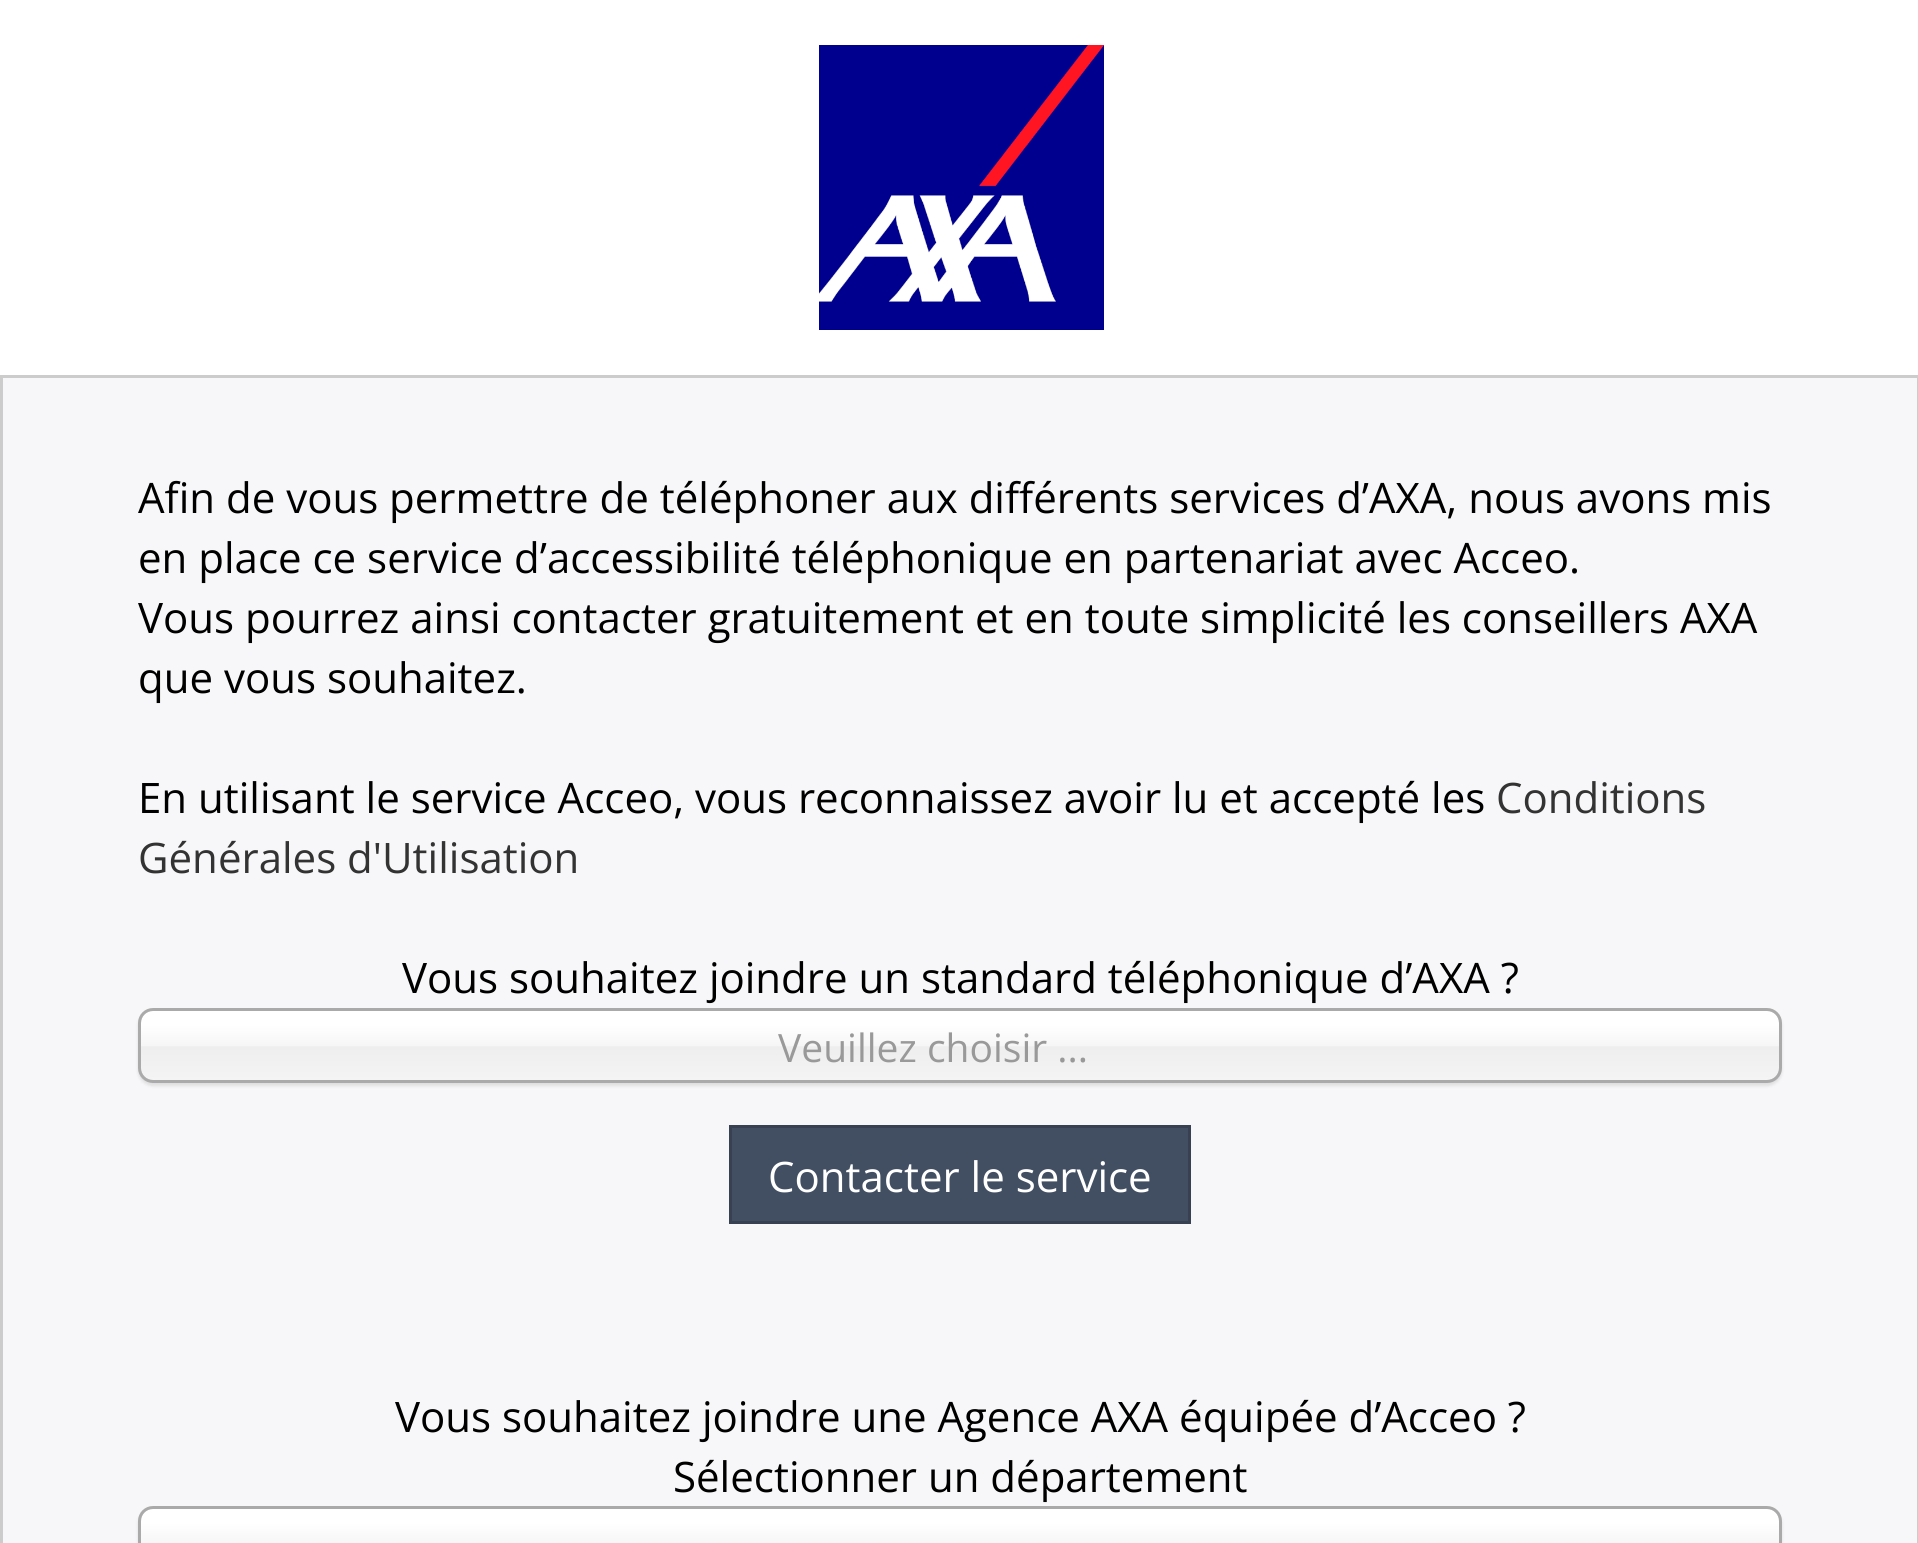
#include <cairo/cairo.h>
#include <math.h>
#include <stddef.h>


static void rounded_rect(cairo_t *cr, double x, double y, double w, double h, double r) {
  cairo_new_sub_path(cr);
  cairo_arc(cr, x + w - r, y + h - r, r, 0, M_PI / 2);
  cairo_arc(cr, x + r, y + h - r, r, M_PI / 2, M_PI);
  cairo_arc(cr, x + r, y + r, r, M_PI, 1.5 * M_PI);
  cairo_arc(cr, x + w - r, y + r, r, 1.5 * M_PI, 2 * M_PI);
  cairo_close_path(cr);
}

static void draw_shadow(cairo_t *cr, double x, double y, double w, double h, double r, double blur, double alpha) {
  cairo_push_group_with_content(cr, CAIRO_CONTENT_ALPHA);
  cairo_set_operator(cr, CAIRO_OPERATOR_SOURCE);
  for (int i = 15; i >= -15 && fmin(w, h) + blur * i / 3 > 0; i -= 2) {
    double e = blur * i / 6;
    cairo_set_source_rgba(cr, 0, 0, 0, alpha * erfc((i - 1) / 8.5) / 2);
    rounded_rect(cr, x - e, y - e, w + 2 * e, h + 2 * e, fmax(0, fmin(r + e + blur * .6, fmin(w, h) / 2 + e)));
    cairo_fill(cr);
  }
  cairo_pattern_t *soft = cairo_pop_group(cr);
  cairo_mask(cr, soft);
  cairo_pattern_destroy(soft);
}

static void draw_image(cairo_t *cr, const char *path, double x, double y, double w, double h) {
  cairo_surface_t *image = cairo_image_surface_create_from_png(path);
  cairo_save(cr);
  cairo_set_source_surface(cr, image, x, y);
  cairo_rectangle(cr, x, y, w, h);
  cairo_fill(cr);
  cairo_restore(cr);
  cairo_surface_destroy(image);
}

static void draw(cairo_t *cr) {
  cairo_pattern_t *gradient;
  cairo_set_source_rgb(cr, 1, 1, 1);
  cairo_paint(cr);
  draw_image(cr, "images/1.png", 819, 45, 285, 285);
  cairo_set_source_rgb(cr, 247 / 255.0, 247 / 255.0, 249 / 255.0);
  cairo_rectangle(cr, 1.5, 376.5, 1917, 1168);
  cairo_fill_preserve(cr);
  cairo_set_source_rgb(cr, 204 / 255.0, 204 / 255.0, 204 / 255.0);
  cairo_set_line_width(cr, 3);
  cairo_stroke(cr);
  cairo_set_source_rgb(cr, 0, 0, 0);
  draw_shadow(cr, 138, 1011, 1644, 75, 15, 1.5, 0.1);
  gradient = cairo_pattern_create_linear(960, 1011, 960, 1080);
  cairo_pattern_add_color_stop_rgba(gradient, 0.2, 1, 1, 1, 1);
  cairo_pattern_add_color_stop_rgba(gradient, 0.5, 246 / 255.0, 246 / 255.0, 246 / 255.0, 1);
  cairo_pattern_add_color_stop_rgba(gradient, 0.52, 238 / 255.0, 238 / 255.0, 238 / 255.0, 1);
  cairo_pattern_add_color_stop_rgba(gradient, 1, 244 / 255.0, 244 / 255.0, 244 / 255.0, 1);
  cairo_set_source(cr, gradient);
  cairo_pattern_destroy(gradient);
  rounded_rect(cr, 141, 1011, 1638, 69, 12);
  cairo_fill(cr);
  rounded_rect(cr, 139.5, 1009.5, 1641, 72, 13.5);
  cairo_set_source_rgb(cr, 170 / 255.0, 170 / 255.0, 170 / 255.0);
  cairo_stroke(cr);
  cairo_set_source_rgb(cr, 66 / 255.0, 79 / 255.0, 99 / 255.0);
  cairo_rectangle(cr, 730.5, 1126.5, 459, 96);
  cairo_fill_preserve(cr);
  cairo_set_source_rgb(cr, 55 / 255.0, 65 / 255.0, 82 / 255.0);
  cairo_stroke(cr);
  cairo_set_source_rgb(cr, 0, 0, 0);
  draw_shadow(cr, 138, 1509, 1644, 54, 15, 1.5, 0.1);
  gradient = cairo_pattern_create_linear(960, 1509, 960, 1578);
  cairo_pattern_add_color_stop_rgba(gradient, 0.2, 1, 1, 1, 1);
  cairo_pattern_add_color_stop_rgba(gradient, 0.5, 246 / 255.0, 246 / 255.0, 246 / 255.0, 1);
  cairo_pattern_add_color_stop_rgba(gradient, 0.52, 238 / 255.0, 238 / 255.0, 238 / 255.0, 1);
  cairo_pattern_add_color_stop_rgba(gradient, 1, 244 / 255.0, 244 / 255.0, 244 / 255.0, 1);
  cairo_set_source(cr, gradient);
  cairo_pattern_destroy(gradient);
  rounded_rect(cr, 141, 1509, 1638, 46, 12);
  cairo_fill(cr);
  rounded_rect(cr, 139.5, 1507.5, 1641, 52, 13.5);
  cairo_set_source_rgb(cr, 170 / 255.0, 170 / 255.0, 170 / 255.0);
  cairo_stroke(cr);
  cairo_select_font_face(cr, "Open Sans", CAIRO_FONT_SLANT_NORMAL, CAIRO_FONT_WEIGHT_NORMAL);
  cairo_set_font_size(cr, 42);
  cairo_set_source_rgb(cr, 0, 0, 0);
  cairo_move_to(cr, 138, 513);
  cairo_show_text(cr, "Afin de vous permettre de téléphoner aux différents services d’AXA, nous avons mis");
  cairo_move_to(cr, 138, 573);
  cairo_show_text(cr, "en place ce service d’accessibilité téléphonique en partenariat avec Acceo.");
  cairo_move_to(cr, 138, 633);
  cairo_show_text(cr, "Vous pourrez ainsi contacter gratuitement et en toute simplicité les conseillers AXA");
  cairo_move_to(cr, 138, 693);
  cairo_show_text(cr, "que vous souhaitez.");
  cairo_move_to(cr, 138, 813);
  cairo_show_text(cr, "En utilisant le service Acceo, vous reconnaissez avoir lu et accepté les");
  cairo_set_source_rgb(cr, 51 / 255.0, 51 / 255.0, 51 / 255.0);
  cairo_move_to(cr, 1496, 813);
  cairo_show_text(cr, "Conditions");
  cairo_move_to(cr, 138, 873);
  cairo_show_text(cr, "Générales d'Utilisation");
  cairo_set_source_rgb(cr, 0, 0, 0);
  cairo_move_to(cr, 402, 993);
  cairo_show_text(cr, "Vous souhaitez joindre un standard téléphonique d’AXA ?");
  cairo_set_font_size(cr, 39);
  cairo_set_source_rgb(cr, 153 / 255.0, 153 / 255.0, 153 / 255.0);
  cairo_move_to(cr, 778, 1062);
  cairo_show_text(cr, "Veuillez choisir ...");
  cairo_set_font_size(cr, 42);
  cairo_set_source_rgb(cr, 1, 1, 1);
  cairo_move_to(cr, 768, 1192);
  cairo_show_text(cr, "Contacter le service");
  cairo_set_source_rgb(cr, 0, 0, 0);
  cairo_move_to(cr, 395, 1432);
  cairo_show_text(cr, "Vous souhaitez joindre une Agence AXA équipée d’Acceo ?");
  cairo_move_to(cr, 673, 1492);
  cairo_show_text(cr, "Sélectionner un département");
}

int main(void) {
  cairo_surface_t *surface = cairo_image_surface_create(CAIRO_FORMAT_RGB24, 1918, 1543);
  cairo_t *cr = cairo_create(surface);
  cairo_font_options_t *options = cairo_font_options_create();
  cairo_font_options_set_hint_metrics(options, CAIRO_HINT_METRICS_OFF);
  cairo_font_options_set_hint_style(options, CAIRO_HINT_STYLE_NONE);
  cairo_set_font_options(cr, options);
  cairo_set_miter_limit(cr, 4);
  draw(cr);
  cairo_surface_write_to_png(surface, "out.png");
  cairo_font_options_destroy(options);
  cairo_destroy(cr);
  cairo_surface_destroy(surface);
  return 0;
}
